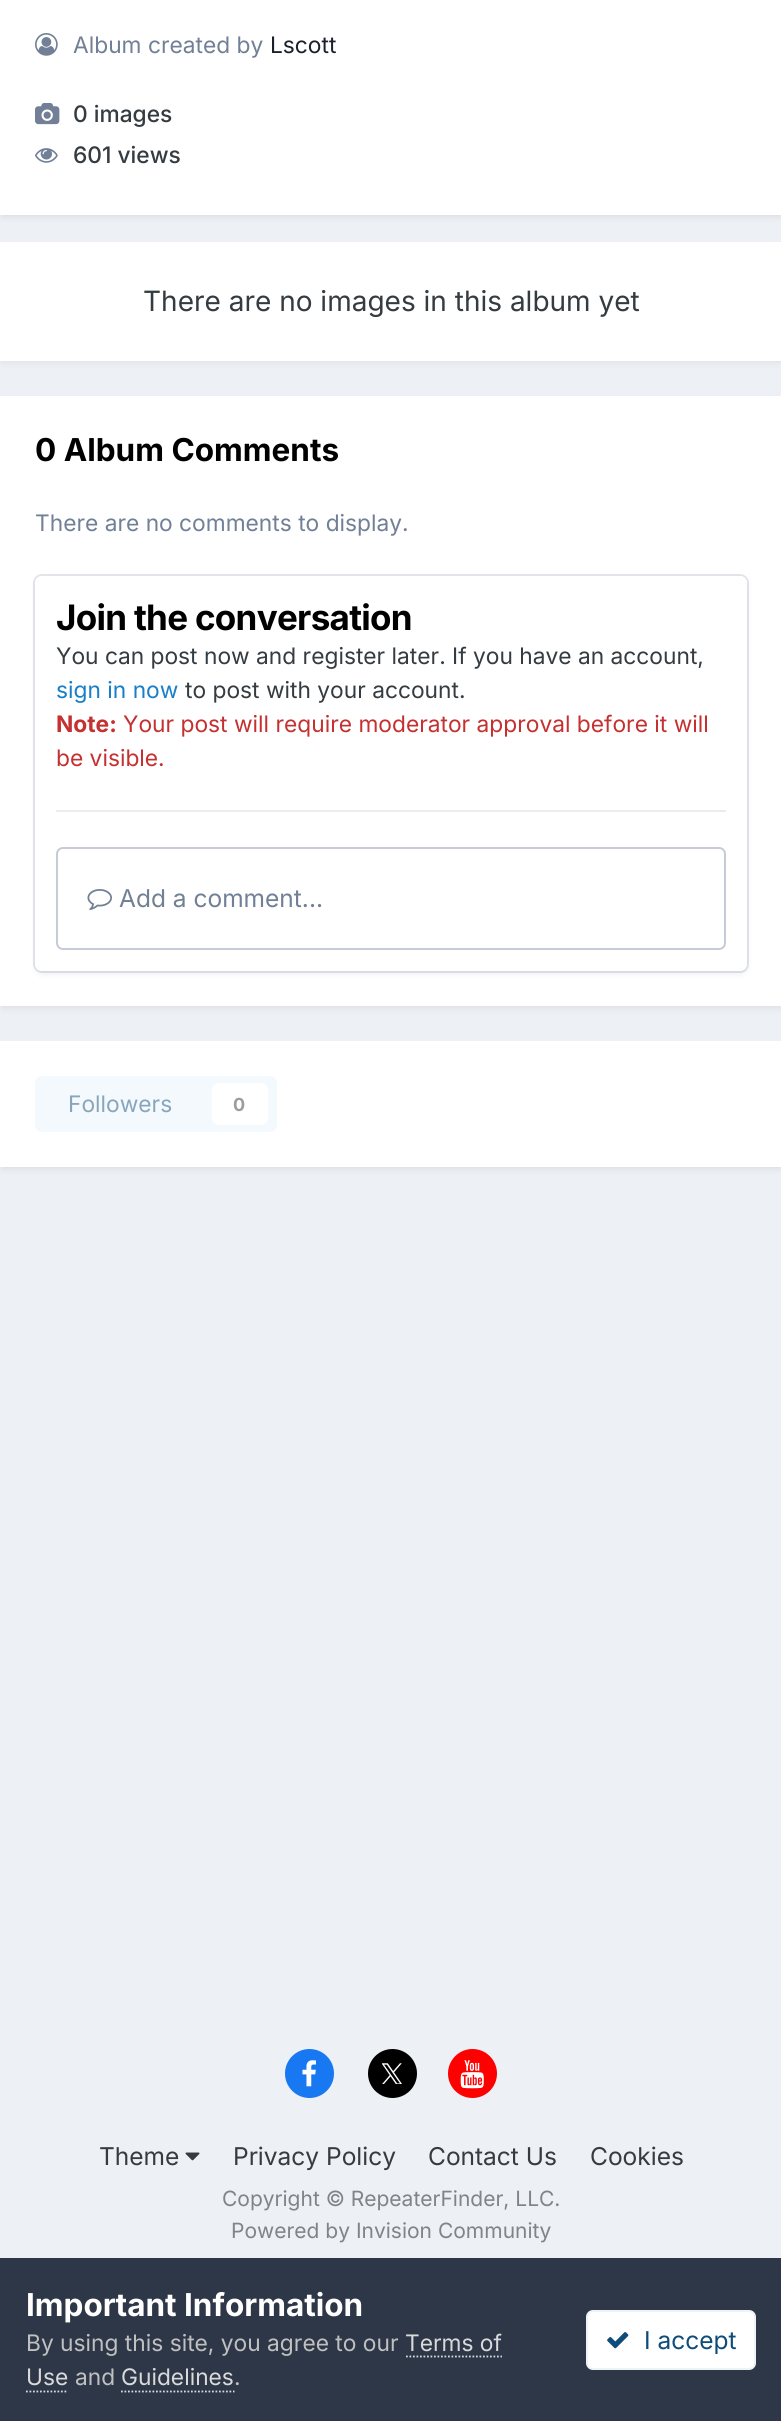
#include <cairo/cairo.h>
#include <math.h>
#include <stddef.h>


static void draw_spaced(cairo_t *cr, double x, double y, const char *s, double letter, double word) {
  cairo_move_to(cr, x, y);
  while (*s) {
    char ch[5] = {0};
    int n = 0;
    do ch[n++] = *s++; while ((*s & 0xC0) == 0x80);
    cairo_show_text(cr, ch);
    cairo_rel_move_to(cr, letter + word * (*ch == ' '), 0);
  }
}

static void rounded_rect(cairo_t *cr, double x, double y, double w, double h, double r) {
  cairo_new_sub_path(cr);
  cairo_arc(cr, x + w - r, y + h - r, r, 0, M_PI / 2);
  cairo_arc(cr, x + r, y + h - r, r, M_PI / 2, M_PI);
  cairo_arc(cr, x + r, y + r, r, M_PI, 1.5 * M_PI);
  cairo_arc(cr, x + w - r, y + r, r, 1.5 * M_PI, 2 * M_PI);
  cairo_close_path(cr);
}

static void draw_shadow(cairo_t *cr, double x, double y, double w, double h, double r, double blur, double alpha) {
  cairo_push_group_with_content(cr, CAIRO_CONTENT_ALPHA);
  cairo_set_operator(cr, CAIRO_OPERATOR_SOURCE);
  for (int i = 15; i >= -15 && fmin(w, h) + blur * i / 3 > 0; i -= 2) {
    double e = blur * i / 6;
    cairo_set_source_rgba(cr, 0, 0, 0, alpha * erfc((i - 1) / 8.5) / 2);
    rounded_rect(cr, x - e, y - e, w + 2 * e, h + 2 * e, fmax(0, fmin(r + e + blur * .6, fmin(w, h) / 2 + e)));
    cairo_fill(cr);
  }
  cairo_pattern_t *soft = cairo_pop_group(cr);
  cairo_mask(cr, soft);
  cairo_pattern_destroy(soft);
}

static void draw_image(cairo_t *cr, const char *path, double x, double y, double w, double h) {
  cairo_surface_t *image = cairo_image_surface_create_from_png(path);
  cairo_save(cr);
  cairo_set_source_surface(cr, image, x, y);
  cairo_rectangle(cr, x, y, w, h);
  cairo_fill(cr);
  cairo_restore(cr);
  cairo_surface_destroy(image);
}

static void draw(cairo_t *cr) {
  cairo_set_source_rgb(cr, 237 / 255.0, 240 / 255.0, 244 / 255.0);
  cairo_paint(cr);
  cairo_set_source_rgb(cr, 45 / 255.0, 55 / 255.0, 72 / 255.0);
  draw_shadow(cr, 2, -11, 779, 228, 0, 3.5, 0.1);
  cairo_set_source_rgb(cr, 1, 1, 1);
  cairo_rectangle(cr, 0, 0, 781, 215);
  cairo_fill(cr);
  draw_image(cr, "images/1.png", 35, 33, 23, 23);
  draw_image(cr, "images/2.png", 35, 103, 25, 22);
  draw_image(cr, "images/3.png", 35, 148, 23, 15);
  cairo_set_source_rgb(cr, 45 / 255.0, 55 / 255.0, 72 / 255.0);
  draw_shadow(cr, 2, 247, 779, 115, 0, 3.5, 0.1);
  cairo_set_source_rgb(cr, 1, 1, 1);
  cairo_rectangle(cr, 0, 242, 781, 119);
  cairo_fill(cr);
  cairo_set_source_rgb(cr, 45 / 255.0, 55 / 255.0, 72 / 255.0);
  draw_shadow(cr, 2, 401, 779, 607, 0, 3.5, 0.1);
  cairo_set_source_rgb(cr, 1, 1, 1);
  cairo_rectangle(cr, 0, 396, 781, 610);
  cairo_fill(cr);
  cairo_set_source_rgb(cr, 45 / 255.0, 55 / 255.0, 72 / 255.0);
  draw_shadow(cr, 37, 581, 709, 392, 5, 3.5, 0.1);
  rounded_rect(cr, 34, 575, 714, 397, 8);
  cairo_set_source_rgba(cr, 113 / 255.0, 128 / 255.0, 150 / 255.0, 0.2);
  cairo_stroke(cr);
  cairo_set_source_rgb(cr, 1, 1, 1);
  rounded_rect(cr, 35, 576, 712, 395, 7);
  cairo_fill(cr);
  cairo_set_source_rgb(cr, 234 / 255.0, 236 / 255.0, 239 / 255.0);
  cairo_rectangle(cr, 56, 810, 670, 2);
  cairo_fill(cr);
  rounded_rect(cr, 57, 848, 668, 101, 6);
  cairo_set_source_rgb(cr, 198 / 255.0, 204 / 255.0, 213 / 255.0);
  cairo_stroke(cr);
  draw_image(cr, "images/4.png", 87, 889, 25, 21);
  cairo_set_source_rgb(cr, 45 / 255.0, 55 / 255.0, 72 / 255.0);
  draw_shadow(cr, 2, 1047, 779, 122, 0, 3.5, 0.1);
  cairo_set_source_rgb(cr, 1, 1, 1);
  cairo_rectangle(cr, 0, 1041, 781, 126);
  cairo_fill(cr);
  cairo_set_source_rgb(cr, 244 / 255.0, 249 / 255.0, 253 / 255.0);
  rounded_rect(cr, 35, 1076, 242, 56, 7);
  cairo_fill(cr);
  cairo_set_source_rgb(cr, 1, 1, 1);
  rounded_rect(cr, 212, 1083, 56, 42, 7);
  cairo_fill(cr);
  cairo_set_source_rgb(cr, 23 / 255.0, 120 / 255.0, 242 / 255.0);
  cairo_arc(cr, 309.5, 2073.5, 24.5, 0, 2 * M_PI);
  cairo_fill(cr);
  draw_image(cr, "images/5.png", 302, 2060, 14, 27);
  cairo_set_source_rgb(cr, 0, 0, 0);
  cairo_arc(cr, 392.5, 2073.5, 24.5, 0, 2 * M_PI);
  cairo_fill(cr);
  draw_image(cr, "images/6.png", 382, 2063, 20, 21);
  cairo_set_source_rgb(cr, 1, 0, 0);
  cairo_arc(cr, 472.5, 2073.5, 24.5, 0, 2 * M_PI);
  cairo_fill(cr);
  draw_image(cr, "images/7.png", 460, 2060, 24, 29);
  draw_image(cr, "images/8.png", 185, 2152, 15, 9);
  cairo_set_source_rgb(cr, 45 / 255.0, 55 / 255.0, 72 / 255.0);
  cairo_rectangle(cr, 0, 2258, 781, 163);
  cairo_fill(cr);
  cairo_new_path(cr);
  cairo_move_to(cr, 406, 2356.5);
  cairo_line_to(cr, 502, 2356.5);
  cairo_set_source_rgb(cr, 218 / 255.0, 218 / 255.0, 218 / 255.0);
  cairo_set_line_width(cr, 1.8);
  cairo_set_dash(cr, (double[]){1.75, 1.75}, 2, 0);
  cairo_stroke(cr);
  cairo_new_path(cr);
  cairo_move_to(cr, 26, 2391.5);
  cairo_line_to(cr, 68, 2391.5);
  cairo_stroke(cr);
  cairo_new_path(cr);
  cairo_move_to(cr, 121, 2391.5);
  cairo_line_to(cr, 234.5, 2391.5);
  cairo_stroke(cr);
  cairo_set_source_rgb(cr, 1, 1, 1);
  rounded_rect(cr, 586, 2310, 170, 60, 7);
  cairo_fill(cr);
  rounded_rect(cr, 587, 2311, 168, 58, 6);
  cairo_set_source_rgba(cr, 14 / 255.0, 76 / 255.0, 121 / 255.0, 0.07);
  cairo_set_line_width(cr, 2);
  cairo_set_dash(cr, NULL, 0, 0);
  cairo_stroke(cr);
  draw_image(cr, "images/9.png", 607, 2332, 22, 17);
  cairo_select_font_face(cr, "Inter", CAIRO_FONT_SLANT_NORMAL, CAIRO_FONT_WEIGHT_NORMAL);
  cairo_set_font_size(cr, 22.75);
  cairo_set_source_rgb(cr, 113 / 255.0, 128 / 255.0, 150 / 255.0);
  cairo_move_to(cr, 73, 53);
  cairo_show_text(cr, "Album created by");
  cairo_set_source_rgb(cr, 26 / 255.0, 32 / 255.0, 44 / 255.0);
  cairo_move_to(cr, 270, 53);
  cairo_show_text(cr, "Lscott");
  cairo_select_font_face(cr, "Inter Medium", CAIRO_FONT_SLANT_NORMAL, CAIRO_FONT_WEIGHT_NORMAL);
  cairo_set_source_rgb(cr, 53 / 255.0, 60 / 255.0, 65 / 255.0);
  cairo_move_to(cr, 73, 122);
  cairo_show_text(cr, "0 images");
  cairo_move_to(cr, 73, 163);
  cairo_show_text(cr, "601 views");
  cairo_select_font_face(cr, "Inter", CAIRO_FONT_SLANT_NORMAL, CAIRO_FONT_WEIGHT_NORMAL);
  cairo_set_font_size(cr, 28);
  cairo_move_to(cr, 143, 311);
  cairo_show_text(cr, "There are no images in this album yet");
  cairo_select_font_face(cr, "Inter", CAIRO_FONT_SLANT_NORMAL, CAIRO_FONT_WEIGHT_BOLD);
  cairo_set_font_size(cr, 31.5);
  cairo_set_source_rgb(cr, 0, 0, 0);
  cairo_move_to(cr, 35, 461);
  cairo_show_text(cr, "0 Album Comments");
  cairo_select_font_face(cr, "Inter", CAIRO_FONT_SLANT_NORMAL, CAIRO_FONT_WEIGHT_NORMAL);
  cairo_set_font_size(cr, 22.75);
  cairo_set_source_rgb(cr, 113 / 255.0, 128 / 255.0, 150 / 255.0);
  cairo_move_to(cr, 35, 531);
  cairo_show_text(cr, "There are no comments to display.");
  cairo_select_font_face(cr, "Inter", CAIRO_FONT_SLANT_NORMAL, CAIRO_FONT_WEIGHT_BOLD);
  cairo_set_font_size(cr, 35);
  cairo_set_source_rgb(cr, 0, 0, 0);
  draw_spaced(cr, 56, 630, "Join the conversation", -0.7, 0);
  cairo_select_font_face(cr, "Inter", CAIRO_FONT_SLANT_NORMAL, CAIRO_FONT_WEIGHT_NORMAL);
  cairo_set_font_size(cr, 22.75);
  cairo_set_source_rgb(cr, 53 / 255.0, 60 / 255.0, 65 / 255.0);
  cairo_move_to(cr, 56, 664);
  cairo_show_text(cr, "You can post now and register later. If you have an account,");
  cairo_set_source_rgb(cr, 23 / 255.0, 126 / 255.0, 201 / 255.0);
  cairo_move_to(cr, 56, 698);
  cairo_show_text(cr, "sign in now");
  cairo_set_source_rgb(cr, 53 / 255.0, 60 / 255.0, 65 / 255.0);
  cairo_move_to(cr, 185, 698);
  cairo_show_text(cr, "to post with your account.");
  cairo_select_font_face(cr, "Inter", CAIRO_FONT_SLANT_NORMAL, CAIRO_FONT_WEIGHT_BOLD);
  cairo_set_source_rgb(cr, 197 / 255.0, 48 / 255.0, 48 / 255.0);
  cairo_move_to(cr, 56, 732);
  cairo_show_text(cr, "Note:");
  cairo_select_font_face(cr, "Inter", CAIRO_FONT_SLANT_NORMAL, CAIRO_FONT_WEIGHT_NORMAL);
  cairo_move_to(cr, 123, 732);
  cairo_show_text(cr, "Your post will require moderator approval before it will");
  cairo_move_to(cr, 56, 766);
  cairo_show_text(cr, "be visible.");
  cairo_set_font_size(cr, 24.5);
  cairo_set_source_rgb(cr, 113 / 255.0, 128 / 255.0, 150 / 255.0);
  cairo_move_to(cr, 119, 907);
  cairo_show_text(cr, "Add a comment...");
  cairo_set_font_size(cr, 22.75);
  cairo_set_source_rgb(cr, 135 / 255.0, 166 / 255.0, 188 / 255.0);
  cairo_move_to(cr, 68, 1112);
  cairo_show_text(cr, "Followers");
  cairo_select_font_face(cr, "Inter", CAIRO_FONT_SLANT_NORMAL, CAIRO_FONT_WEIGHT_BOLD);
  cairo_set_font_size(cr, 18);
  cairo_set_source_rgb(cr, 154 / 255.0, 158 / 255.0, 160 / 255.0);
  cairo_move_to(cr, 233, 1111);
  cairo_show_text(cr, "0");
  cairo_select_font_face(cr, "Inter", CAIRO_FONT_SLANT_NORMAL, CAIRO_FONT_WEIGHT_NORMAL);
  cairo_set_font_size(cr, 24.5);
  cairo_set_source_rgb(cr, 53 / 255.0, 60 / 255.0, 65 / 255.0);
  cairo_move_to(cr, 99, 2165);
  cairo_show_text(cr, "Theme");
  cairo_move_to(cr, 233, 2165);
  cairo_show_text(cr, "Privacy Policy");
  cairo_move_to(cr, 428, 2165);
  cairo_show_text(cr, "Contact Us");
  cairo_move_to(cr, 590, 2165);
  cairo_show_text(cr, "Cookies");
  cairo_set_font_size(cr, 21);
  cairo_set_source_rgb(cr, 127 / 255.0, 132 / 255.0, 137 / 255.0);
  cairo_move_to(cr, 222, 2206);
  cairo_show_text(cr, "Copyright © RepeaterFinder, LLC.");
  cairo_move_to(cr, 231, 2238);
  cairo_show_text(cr, "Powered by Invision Community");
  cairo_select_font_face(cr, "Inter", CAIRO_FONT_SLANT_NORMAL, CAIRO_FONT_WEIGHT_BOLD);
  cairo_set_font_size(cr, 31.5);
  cairo_set_source_rgb(cr, 1, 1, 1);
  cairo_move_to(cr, 26, 2316);
  cairo_show_text(cr, "Important Information");
  cairo_select_font_face(cr, "Inter", CAIRO_FONT_SLANT_NORMAL, CAIRO_FONT_WEIGHT_NORMAL);
  cairo_set_font_size(cr, 22.75);
  cairo_set_source_rgb(cr, 192 / 255.0, 192 / 255.0, 192 / 255.0);
  cairo_move_to(cr, 26, 2351);
  cairo_show_text(cr, "By using this site, you agree to our");
  cairo_set_source_rgb(cr, 218 / 255.0, 218 / 255.0, 218 / 255.0);
  cairo_move_to(cr, 405, 2351);
  cairo_show_text(cr, "Terms of");
  cairo_move_to(cr, 26, 2385);
  cairo_show_text(cr, "Use");
  cairo_set_source_rgb(cr, 192 / 255.0, 192 / 255.0, 192 / 255.0);
  cairo_move_to(cr, 75, 2385);
  cairo_show_text(cr, "and");
  cairo_set_source_rgb(cr, 218 / 255.0, 218 / 255.0, 218 / 255.0);
  cairo_move_to(cr, 121, 2385);
  cairo_show_text(cr, "Guidelines");
  cairo_set_source_rgb(cr, 192 / 255.0, 192 / 255.0, 192 / 255.0);
  cairo_move_to(cr, 234, 2385);
  cairo_show_text(cr, ".");
  cairo_set_font_size(cr, 24.5);
  cairo_set_source_rgb(cr, 14 / 255.0, 76 / 255.0, 121 / 255.0);
  cairo_move_to(cr, 644, 2349);
  cairo_show_text(cr, "I accept");
}

int main(void) {
  cairo_surface_t *surface = cairo_image_surface_create(CAIRO_FORMAT_RGB24, 781, 2421);
  cairo_t *cr = cairo_create(surface);
  cairo_font_options_t *options = cairo_font_options_create();
  cairo_font_options_set_hint_metrics(options, CAIRO_HINT_METRICS_OFF);
  cairo_font_options_set_hint_style(options, CAIRO_HINT_STYLE_NONE);
  cairo_set_font_options(cr, options);
  cairo_set_miter_limit(cr, 4);
  draw(cr);
  cairo_surface_write_to_png(surface, "out.png");
  cairo_font_options_destroy(options);
  cairo_destroy(cr);
  cairo_surface_destroy(surface);
  return 0;
}
